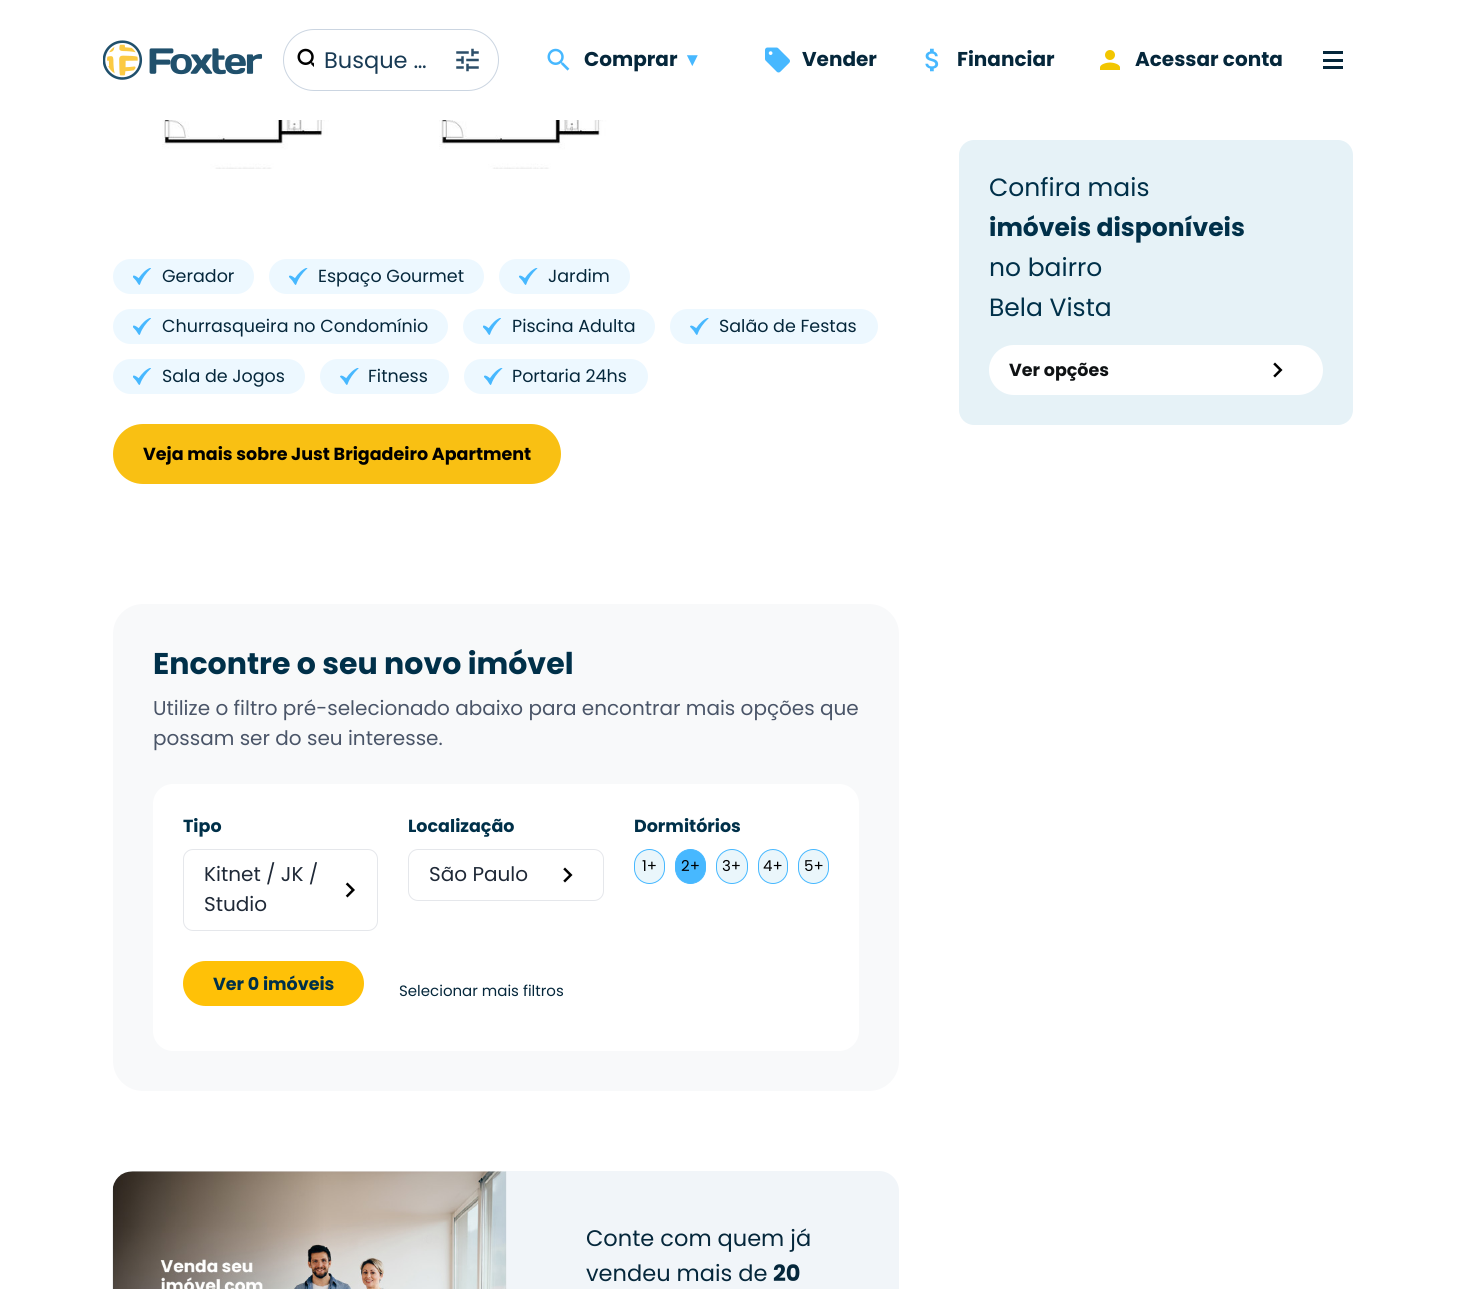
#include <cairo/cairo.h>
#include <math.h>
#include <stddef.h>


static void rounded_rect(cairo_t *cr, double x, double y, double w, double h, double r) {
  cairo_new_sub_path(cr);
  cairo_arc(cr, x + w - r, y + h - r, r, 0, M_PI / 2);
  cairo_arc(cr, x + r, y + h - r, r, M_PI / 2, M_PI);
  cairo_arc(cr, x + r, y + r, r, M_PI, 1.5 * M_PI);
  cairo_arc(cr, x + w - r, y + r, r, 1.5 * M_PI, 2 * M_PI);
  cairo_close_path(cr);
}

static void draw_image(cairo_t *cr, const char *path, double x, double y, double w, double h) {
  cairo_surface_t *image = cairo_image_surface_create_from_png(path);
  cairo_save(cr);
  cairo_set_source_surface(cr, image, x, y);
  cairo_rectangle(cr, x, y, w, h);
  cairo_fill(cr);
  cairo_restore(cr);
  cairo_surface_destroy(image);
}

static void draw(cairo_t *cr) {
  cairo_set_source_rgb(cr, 1, 1, 1);
  cairo_paint(cr);
  draw_image(cr, "images/1.png", 103, 40, 160, 40);
  rounded_rect(cr, 283.5, 29.5, 215, 61, 30.5);
  cairo_set_source_rgb(cr, 203 / 255.0, 213 / 255.0, 225 / 255.0);
  cairo_set_line_width(cr, 1);
  cairo_stroke(cr);
  draw_image(cr, "images/2.png", 297, 48, 17, 19);
  draw_image(cr, "images/3.png", 456, 48, 23, 24);
  draw_image(cr, "images/4.png", 547, 48, 23, 23);
  draw_image(cr, "images/5.png", 765, 47, 25, 26);
  draw_image(cr, "images/6.png", 925, 48, 14, 24);
  draw_image(cr, "images/7.png", 1100, 50, 20, 20);
  cairo_set_source_rgb(cr, 5 / 255.0, 39 / 255.0, 59 / 255.0);
  cairo_rectangle(cr, 1323, 51, 20, 3);
  cairo_fill(cr);
  cairo_rectangle(cr, 1323, 59, 20, 3);
  cairo_fill(cr);
  cairo_rectangle(cr, 1323, 66, 20, 3);
  cairo_fill(cr);
  draw_image(cr, "images/8.png", 162, 120, 168, 49);
  draw_image(cr, "images/9.png", 439, 120, 168, 49);
  cairo_set_source_rgb(cr, 237 / 255.0, 248 / 255.0, 1);
  rounded_rect(cr, 113, 259, 141, 35, 17.5);
  cairo_fill(cr);
  draw_image(cr, "images/10.png", 133, 268, 18, 17);
  rounded_rect(cr, 269, 259, 215, 35, 17.5);
  cairo_fill(cr);
  draw_image(cr, "images/11.png", 289, 268, 19, 17);
  rounded_rect(cr, 499, 259, 131, 35, 17.5);
  cairo_fill(cr);
  draw_image(cr, "images/11.png", 519, 268, 19, 17);
  rounded_rect(cr, 113, 309, 335, 35, 17.5);
  cairo_fill(cr);
  draw_image(cr, "images/10.png", 133, 318, 18, 17);
  rounded_rect(cr, 463, 309, 192, 35, 17.5);
  cairo_fill(cr);
  draw_image(cr, "images/10.png", 483, 318, 18, 17);
  rounded_rect(cr, 670, 309, 208, 35, 17.5);
  cairo_fill(cr);
  draw_image(cr, "images/12.png", 690, 318, 19, 17);
  rounded_rect(cr, 113, 359, 192, 35, 17.5);
  cairo_fill(cr);
  draw_image(cr, "images/10.png", 133, 368, 18, 17);
  rounded_rect(cr, 320, 359, 129, 35, 17.5);
  cairo_fill(cr);
  draw_image(cr, "images/12.png", 340, 368, 19, 17);
  rounded_rect(cr, 464, 359, 184, 35, 17.5);
  cairo_fill(cr);
  draw_image(cr, "images/11.png", 484, 368, 19, 17);
  cairo_set_source_rgb(cr, 249 / 255.0, 192 / 255.0, 19 / 255.0);
  rounded_rect(cr, 113, 424, 448, 60, 30);
  cairo_fill(cr);
  cairo_set_source_rgb(cr, 248 / 255.0, 249 / 255.0, 250 / 255.0);
  rounded_rect(cr, 113, 604, 786, 487, 30);
  cairo_fill(cr);
  cairo_set_source_rgb(cr, 1, 1, 1);
  rounded_rect(cr, 153, 784, 706, 267, 20);
  cairo_fill(cr);
  rounded_rect(cr, 183.5, 849.5, 194, 81, 9.5);
  cairo_set_source_rgb(cr, 229 / 255.0, 231 / 255.0, 235 / 255.0);
  cairo_stroke(cr);
  draw_image(cr, "images/13.png", 345, 882, 10, 16);
  rounded_rect(cr, 408.5, 849.5, 195, 51, 9.5);
  cairo_stroke(cr);
  draw_image(cr, "images/14.png", 563, 867, 10, 16);
  cairo_set_source_rgb(cr, 234 / 255.0, 246 / 255.0, 251 / 255.0);
  rounded_rect(cr, 634.5, 849.5, 30, 34, 15);
  cairo_fill_preserve(cr);
  cairo_set_source_rgb(cr, 71 / 255.0, 184 / 255.0, 1);
  cairo_stroke(cr);
  rounded_rect(cr, 675.5, 849.5, 30, 34, 15);
  cairo_fill_preserve(cr);
  cairo_stroke(cr);
  cairo_set_source_rgb(cr, 234 / 255.0, 246 / 255.0, 251 / 255.0);
  rounded_rect(cr, 716.5, 849.5, 31, 34, 15.5);
  cairo_fill_preserve(cr);
  cairo_set_source_rgb(cr, 71 / 255.0, 184 / 255.0, 1);
  cairo_stroke(cr);
  cairo_set_source_rgb(cr, 234 / 255.0, 246 / 255.0, 251 / 255.0);
  rounded_rect(cr, 758.5, 849.5, 29, 34, 14.5);
  cairo_fill_preserve(cr);
  cairo_set_source_rgb(cr, 71 / 255.0, 184 / 255.0, 1);
  cairo_stroke(cr);
  cairo_set_source_rgb(cr, 234 / 255.0, 246 / 255.0, 251 / 255.0);
  rounded_rect(cr, 798.5, 849.5, 30, 34, 15);
  cairo_fill_preserve(cr);
  cairo_set_source_rgb(cr, 71 / 255.0, 184 / 255.0, 1);
  cairo_stroke(cr);
  cairo_set_source_rgb(cr, 1, 193 / 255.0, 7 / 255.0);
  rounded_rect(cr, 183, 961, 181, 45, 22.5);
  cairo_fill(cr);
  cairo_set_source_rgb(cr, 248 / 255.0, 250 / 255.0, 252 / 255.0);
  cairo_new_path(cr);
  cairo_move_to(cr, 133, 1171);
  cairo_line_to(cr, 506, 1171);
  cairo_line_to(cr, 506, 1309);
  cairo_line_to(cr, 133, 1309);
  cairo_curve_to(cr, 122, 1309, 113, 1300, 113, 1289);
  cairo_line_to(cr, 113, 1191);
  cairo_curve_to(cr, 113, 1180, 122, 1171, 133, 1171);
  cairo_close_path(cr);
  cairo_fill(cr);
  cairo_set_source_rgb(cr, 241 / 255.0, 245 / 255.0, 249 / 255.0);
  cairo_new_path(cr);
  cairo_move_to(cr, 506, 1171);
  cairo_line_to(cr, 879, 1171);
  cairo_curve_to(cr, 890, 1171, 899, 1180, 899, 1191);
  cairo_line_to(cr, 899, 1289);
  cairo_curve_to(cr, 899, 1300, 890, 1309, 879, 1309);
  cairo_line_to(cr, 506, 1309);
  cairo_close_path(cr);
  cairo_fill(cr);
  draw_image(cr, "images/15.png", 112, 1171, 395, 118);
  cairo_set_source_rgb(cr, 230 / 255.0, 242 / 255.0, 247 / 255.0);
  rounded_rect(cr, 959, 140, 394, 285, 15);
  cairo_fill(cr);
  cairo_set_source_rgb(cr, 1, 1, 1);
  rounded_rect(cr, 989, 345, 334, 50, 25);
  cairo_fill(cr);
  draw_image(cr, "images/14.png", 1273, 362, 10, 16);
  cairo_select_font_face(cr, "Poppins", CAIRO_FONT_SLANT_NORMAL, CAIRO_FONT_WEIGHT_NORMAL);
  cairo_set_font_size(cr, 22.5);
  cairo_set_source_rgb(cr, 24 / 255.0, 58 / 255.0, 84 / 255.0);
  cairo_move_to(cr, 324, 68);
  cairo_show_text(cr, "Busque …");
  cairo_select_font_face(cr, "Poppins", CAIRO_FONT_SLANT_NORMAL, CAIRO_FONT_WEIGHT_BOLD);
  cairo_set_font_size(cr, 20);
  cairo_set_source_rgb(cr, 5 / 255.0, 39 / 255.0, 59 / 255.0);
  cairo_move_to(cr, 584, 66);
  cairo_show_text(cr, "Comprar");
  cairo_select_font_face(cr, "DejaVu Sans", CAIRO_FONT_SLANT_NORMAL, CAIRO_FONT_WEIGHT_BOLD);
  cairo_set_source_rgb(cr, 71 / 255.0, 184 / 255.0, 1);
  cairo_move_to(cr, 687, 66);
  cairo_show_text(cr, "▾");
  cairo_select_font_face(cr, "Poppins", CAIRO_FONT_SLANT_NORMAL, CAIRO_FONT_WEIGHT_BOLD);
  cairo_set_source_rgb(cr, 5 / 255.0, 39 / 255.0, 59 / 255.0);
  cairo_move_to(cr, 802, 66);
  cairo_show_text(cr, "Vender");
  cairo_move_to(cr, 957, 66);
  cairo_show_text(cr, "Financiar");
  cairo_move_to(cr, 1135, 66);
  cairo_show_text(cr, "Acessar conta");
  cairo_select_font_face(cr, "Poppins", CAIRO_FONT_SLANT_NORMAL, CAIRO_FONT_WEIGHT_NORMAL);
  cairo_set_font_size(cr, 17.5);
  cairo_move_to(cr, 162, 282);
  cairo_show_text(cr, "Gerador");
  cairo_move_to(cr, 318, 282);
  cairo_show_text(cr, "Espaço Gourmet");
  cairo_move_to(cr, 548, 282);
  cairo_show_text(cr, "Jardim");
  cairo_move_to(cr, 162, 332);
  cairo_show_text(cr, "Churrasqueira no Condomínio");
  cairo_move_to(cr, 512, 332);
  cairo_show_text(cr, "Piscina Adulta");
  cairo_move_to(cr, 719, 332);
  cairo_show_text(cr, "Salão de Festas");
  cairo_move_to(cr, 162, 382);
  cairo_show_text(cr, "Sala de Jogos");
  cairo_move_to(cr, 368, 382);
  cairo_show_text(cr, "Fitness");
  cairo_move_to(cr, 512, 382);
  cairo_show_text(cr, "Portaria 24hs");
  cairo_select_font_face(cr, "Poppins", CAIRO_FONT_SLANT_NORMAL, CAIRO_FONT_WEIGHT_BOLD);
  cairo_set_source_rgb(cr, 0, 0, 0);
  cairo_move_to(cr, 143, 460);
  cairo_show_text(cr, "Veja mais sobre Just Brigadeiro Apartment");
  cairo_set_font_size(cr, 30);
  cairo_set_source_rgb(cr, 0, 48 / 255.0, 73 / 255.0);
  cairo_move_to(cr, 153, 674);
  cairo_show_text(cr, "Encontre o seu novo imóvel");
  cairo_select_font_face(cr, "Poppins", CAIRO_FONT_SLANT_NORMAL, CAIRO_FONT_WEIGHT_NORMAL);
  cairo_set_font_size(cr, 20);
  cairo_set_source_rgb(cr, 74 / 255.0, 85 / 255.0, 104 / 255.0);
  cairo_move_to(cr, 153, 715);
  cairo_show_text(cr, "Utilize o filtro pré-selecionado abaixo para encontrar mais opções que");
  cairo_move_to(cr, 153, 745);
  cairo_show_text(cr, "possam ser do seu interesse.");
  cairo_select_font_face(cr, "Poppins", CAIRO_FONT_SLANT_NORMAL, CAIRO_FONT_WEIGHT_BOLD);
  cairo_set_font_size(cr, 17.5);
  cairo_set_source_rgb(cr, 0, 48 / 255.0, 73 / 255.0);
  cairo_move_to(cr, 183, 832);
  cairo_show_text(cr, "Tipo");
  cairo_select_font_face(cr, "Poppins", CAIRO_FONT_SLANT_NORMAL, CAIRO_FONT_WEIGHT_NORMAL);
  cairo_set_font_size(cr, 20);
  cairo_set_source_rgb(cr, 31 / 255.0, 41 / 255.0, 55 / 255.0);
  cairo_move_to(cr, 204, 881);
  cairo_show_text(cr, "Kitnet / JK /");
  cairo_move_to(cr, 204, 911);
  cairo_show_text(cr, "Studio");
  cairo_select_font_face(cr, "Poppins", CAIRO_FONT_SLANT_NORMAL, CAIRO_FONT_WEIGHT_BOLD);
  cairo_set_font_size(cr, 17.5);
  cairo_set_source_rgb(cr, 0, 48 / 255.0, 73 / 255.0);
  cairo_move_to(cr, 408, 832);
  cairo_show_text(cr, "Localização");
  cairo_select_font_face(cr, "Poppins", CAIRO_FONT_SLANT_NORMAL, CAIRO_FONT_WEIGHT_NORMAL);
  cairo_set_font_size(cr, 20);
  cairo_set_source_rgb(cr, 31 / 255.0, 41 / 255.0, 55 / 255.0);
  cairo_move_to(cr, 429, 881);
  cairo_show_text(cr, "São Paulo");
  cairo_select_font_face(cr, "Poppins", CAIRO_FONT_SLANT_NORMAL, CAIRO_FONT_WEIGHT_BOLD);
  cairo_set_font_size(cr, 17.5);
  cairo_set_source_rgb(cr, 0, 48 / 255.0, 73 / 255.0);
  cairo_move_to(cr, 634, 832);
  cairo_show_text(cr, "Dormitórios");
  cairo_select_font_face(cr, "Poppins", CAIRO_FONT_SLANT_NORMAL, CAIRO_FONT_WEIGHT_NORMAL);
  cairo_set_font_size(cr, 15);
  cairo_set_source_rgb(cr, 0, 0, 0);
  cairo_move_to(cr, 642, 871);
  cairo_show_text(cr, "1+");
  cairo_move_to(cr, 681, 871);
  cairo_show_text(cr, "2+");
  cairo_move_to(cr, 722, 871);
  cairo_show_text(cr, "3+");
  cairo_move_to(cr, 763, 871);
  cairo_show_text(cr, "4+");
  cairo_move_to(cr, 804, 871);
  cairo_show_text(cr, "5+");
  cairo_select_font_face(cr, "Poppins", CAIRO_FONT_SLANT_NORMAL, CAIRO_FONT_WEIGHT_BOLD);
  cairo_set_font_size(cr, 17.5);
  cairo_set_source_rgb(cr, 0, 48 / 255.0, 73 / 255.0);
  cairo_move_to(cr, 213, 990);
  cairo_show_text(cr, "Ver 0 imóveis");
  cairo_select_font_face(cr, "Poppins", CAIRO_FONT_SLANT_NORMAL, CAIRO_FONT_WEIGHT_NORMAL);
  cairo_set_font_size(cr, 15);
  cairo_set_source_rgb(cr, 5 / 255.0, 39 / 255.0, 59 / 255.0);
  cairo_move_to(cr, 399, 996);
  cairo_show_text(cr, "Selecionar mais filtros");
  cairo_set_font_size(cr, 22.5);
  cairo_move_to(cr, 586, 1246);
  cairo_show_text(cr, "Conte com quem já");
  cairo_move_to(cr, 586, 1281);
  cairo_show_text(cr, "vendeu mais de");
  cairo_select_font_face(cr, "Poppins", CAIRO_FONT_SLANT_NORMAL, CAIRO_FONT_WEIGHT_BOLD);
  cairo_move_to(cr, 773, 1281);
  cairo_show_text(cr, "20");
  cairo_select_font_face(cr, "Poppins", CAIRO_FONT_SLANT_NORMAL, CAIRO_FONT_WEIGHT_NORMAL);
  cairo_set_font_size(cr, 25);
  cairo_set_source_rgb(cr, 0, 48 / 255.0, 73 / 255.0);
  cairo_move_to(cr, 989, 196);
  cairo_show_text(cr, "Confira mais");
  cairo_select_font_face(cr, "Poppins", CAIRO_FONT_SLANT_NORMAL, CAIRO_FONT_WEIGHT_BOLD);
  cairo_move_to(cr, 989, 236);
  cairo_show_text(cr, "imóveis disponíveis");
  cairo_select_font_face(cr, "Poppins", CAIRO_FONT_SLANT_NORMAL, CAIRO_FONT_WEIGHT_NORMAL);
  cairo_move_to(cr, 989, 276);
  cairo_show_text(cr, "no bairro");
  cairo_move_to(cr, 989, 316);
  cairo_show_text(cr, "Bela Vista");
  cairo_select_font_face(cr, "Poppins", CAIRO_FONT_SLANT_NORMAL, CAIRO_FONT_WEIGHT_BOLD);
  cairo_set_font_size(cr, 17.5);
  cairo_set_source_rgb(cr, 15 / 255.0, 18 / 255.0, 20 / 255.0);
  cairo_move_to(cr, 1009, 376);
  cairo_show_text(cr, "Ver opções");
}

int main(void) {
  cairo_surface_t *surface = cairo_image_surface_create(CAIRO_FORMAT_RGB24, 1465, 1289);
  cairo_t *cr = cairo_create(surface);
  cairo_font_options_t *options = cairo_font_options_create();
  cairo_font_options_set_hint_metrics(options, CAIRO_HINT_METRICS_OFF);
  cairo_font_options_set_hint_style(options, CAIRO_HINT_STYLE_NONE);
  cairo_set_font_options(cr, options);
  cairo_set_miter_limit(cr, 4);
  draw(cr);
  cairo_surface_write_to_png(surface, "out.png");
  cairo_font_options_destroy(options);
  cairo_destroy(cr);
  cairo_surface_destroy(surface);
  return 0;
}
